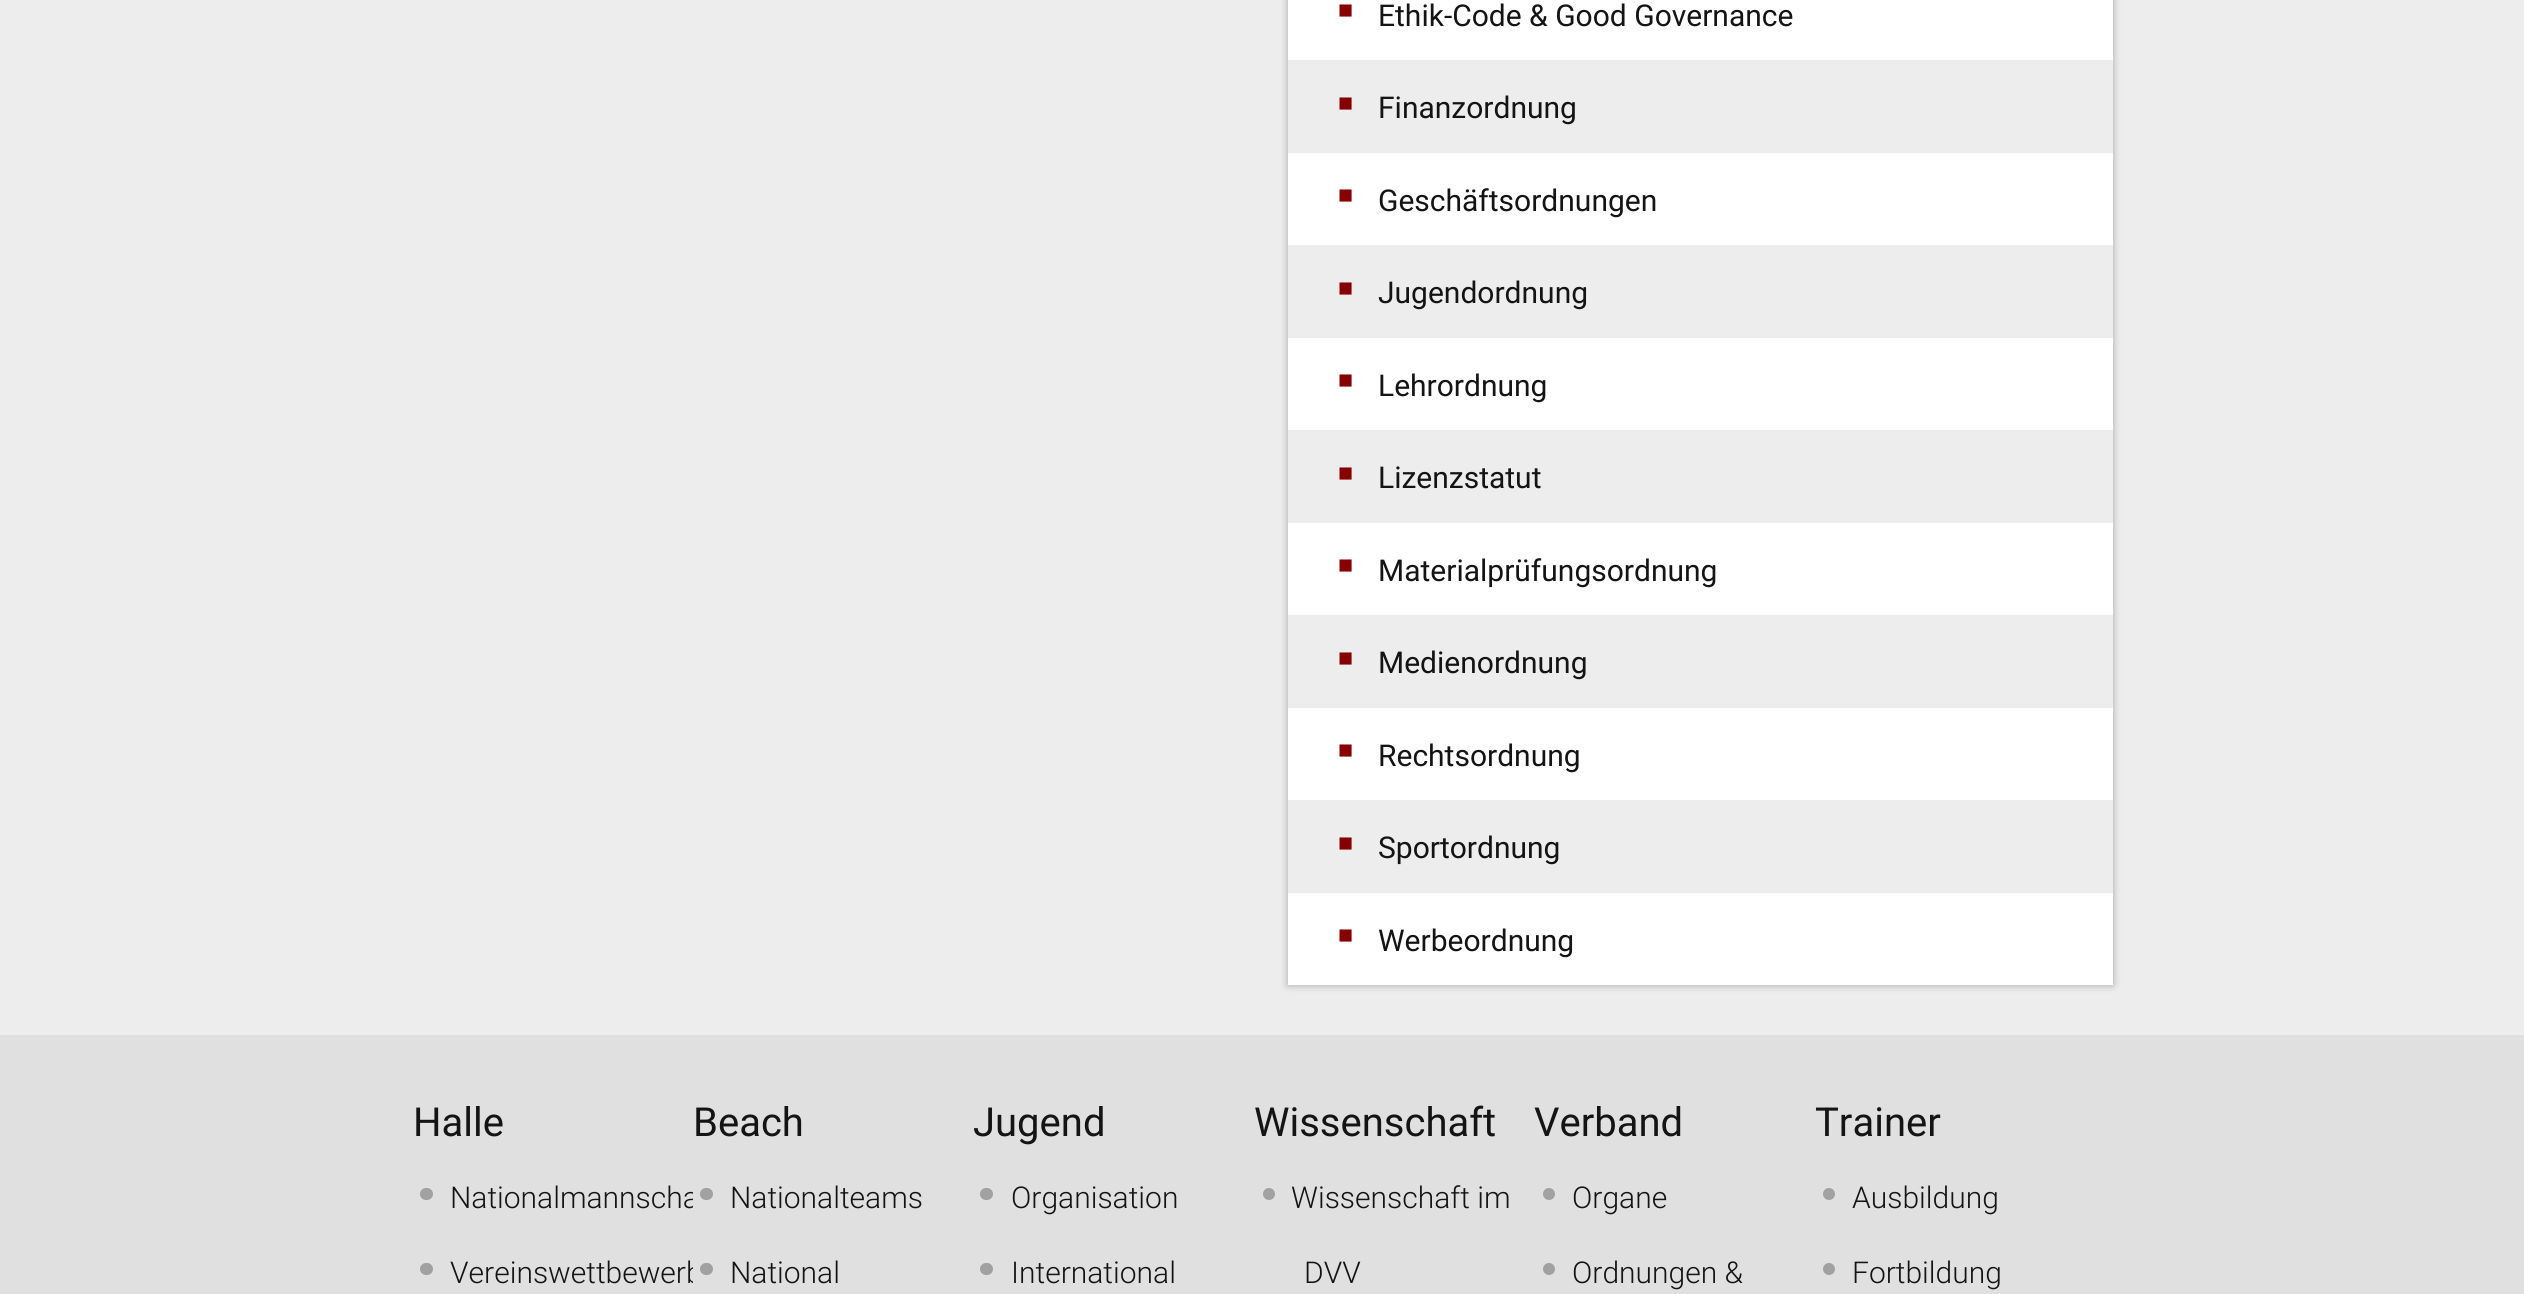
#include <cairo/cairo.h>
#include <math.h>
#include <stddef.h>


static void rounded_rect(cairo_t *cr, double x, double y, double w, double h, double r) {
  cairo_new_sub_path(cr);
  cairo_arc(cr, x + w - r, y + h - r, r, 0, M_PI / 2);
  cairo_arc(cr, x + r, y + h - r, r, M_PI / 2, M_PI);
  cairo_arc(cr, x + r, y + r, r, M_PI, 1.5 * M_PI);
  cairo_arc(cr, x + w - r, y + r, r, 1.5 * M_PI, 2 * M_PI);
  cairo_close_path(cr);
}

static void draw_shadow(cairo_t *cr, double x, double y, double w, double h, double r, double blur, double alpha) {
  cairo_push_group_with_content(cr, CAIRO_CONTENT_ALPHA);
  cairo_set_operator(cr, CAIRO_OPERATOR_SOURCE);
  for (int i = 15; i >= -15 && fmin(w, h) + blur * i / 3 > 0; i -= 2) {
    double e = blur * i / 6;
    cairo_set_source_rgba(cr, 0, 0, 0, alpha * erfc((i - 1) / 8.5) / 2);
    rounded_rect(cr, x - e, y - e, w + 2 * e, h + 2 * e, fmax(0, fmin(r + e + blur * .6, fmin(w, h) / 2 + e)));
    cairo_fill(cr);
  }
  cairo_pattern_t *soft = cairo_pop_group(cr);
  cairo_mask(cr, soft);
  cairo_pattern_destroy(soft);
}

static void draw(cairo_t *cr) {
  cairo_set_source_rgb(cr, 237 / 255.0, 237 / 255.0, 237 / 255.0);
  cairo_paint(cr);
  cairo_set_source_rgb(cr, 0, 0, 0);
  draw_shadow(cr, 1288, -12, 825, 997, 0, 4, 0.3);
  cairo_set_source_rgb(cr, 1, 1, 1);
  cairo_rectangle(cr, 1288, 0, 825, 985);
  cairo_fill(cr);
  cairo_set_source_rgb(cr, 237 / 255.0, 237 / 255.0, 237 / 255.0);
  cairo_rectangle(cr, 1288, 60, 825, 93);
  cairo_fill(cr);
  cairo_rectangle(cr, 1288, 245, 825, 93);
  cairo_fill(cr);
  cairo_rectangle(cr, 1288, 430, 825, 93);
  cairo_fill(cr);
  cairo_rectangle(cr, 1288, 615, 825, 93);
  cairo_fill(cr);
  cairo_rectangle(cr, 1288, 800, 825, 93);
  cairo_fill(cr);
  cairo_set_source_rgb(cr, 224 / 255.0, 224 / 255.0, 224 / 255.0);
  cairo_rectangle(cr, 0, 1035, 2524, 259);
  cairo_fill(cr);
  cairo_set_source_rgb(cr, 161 / 255.0, 161 / 255.0, 161 / 255.0);
  rounded_rect(cr, 420, 1188, 13, 12, 6);
  cairo_fill(cr);
  rounded_rect(cr, 420, 1263, 13, 12, 6);
  cairo_fill(cr);
  rounded_rect(cr, 700, 1188, 13, 12, 6);
  cairo_fill(cr);
  rounded_rect(cr, 700, 1263, 13, 12, 6);
  cairo_fill(cr);
  rounded_rect(cr, 980, 1188, 13, 12, 6);
  cairo_fill(cr);
  rounded_rect(cr, 980, 1263, 13, 12, 6);
  cairo_fill(cr);
  cairo_arc(cr, 1269, 1194, 6, 0, 2 * M_PI);
  cairo_fill(cr);
  cairo_arc(cr, 1549, 1194, 6, 0, 2 * M_PI);
  cairo_fill(cr);
  cairo_arc(cr, 1549, 1269, 6, 0, 2 * M_PI);
  cairo_fill(cr);
  cairo_arc(cr, 1829, 1194, 6, 0, 2 * M_PI);
  cairo_fill(cr);
  cairo_arc(cr, 1829, 1269, 6, 0, 2 * M_PI);
  cairo_fill(cr);
  cairo_select_font_face(cr, "Liberation Sans", CAIRO_FONT_SLANT_NORMAL, CAIRO_FONT_WEIGHT_NORMAL);
  cairo_set_font_size(cr, 25);
  cairo_set_source_rgb(cr, 135 / 255.0, 0, 0);
  cairo_move_to(cr, 1338, 18);
  cairo_show_text(cr, "■");
  cairo_select_font_face(cr, "Roboto", CAIRO_FONT_SLANT_NORMAL, CAIRO_FONT_WEIGHT_NORMAL);
  cairo_set_font_size(cr, 30);
  cairo_set_source_rgb(cr, 20 / 255.0, 20 / 255.0, 20 / 255.0);
  cairo_move_to(cr, 1378, 26);
  cairo_show_text(cr, "Ethik-Code & Good Governance");
  cairo_select_font_face(cr, "Liberation Sans", CAIRO_FONT_SLANT_NORMAL, CAIRO_FONT_WEIGHT_NORMAL);
  cairo_set_font_size(cr, 25);
  cairo_set_source_rgb(cr, 135 / 255.0, 0, 0);
  cairo_move_to(cr, 1338, 111);
  cairo_show_text(cr, "■");
  cairo_select_font_face(cr, "Roboto", CAIRO_FONT_SLANT_NORMAL, CAIRO_FONT_WEIGHT_NORMAL);
  cairo_set_font_size(cr, 30);
  cairo_set_source_rgb(cr, 20 / 255.0, 20 / 255.0, 20 / 255.0);
  cairo_move_to(cr, 1378, 118);
  cairo_show_text(cr, "Finanzordnung");
  cairo_select_font_face(cr, "Liberation Sans", CAIRO_FONT_SLANT_NORMAL, CAIRO_FONT_WEIGHT_NORMAL);
  cairo_set_font_size(cr, 25);
  cairo_set_source_rgb(cr, 135 / 255.0, 0, 0);
  cairo_move_to(cr, 1338, 203);
  cairo_show_text(cr, "■");
  cairo_select_font_face(cr, "Roboto", CAIRO_FONT_SLANT_NORMAL, CAIRO_FONT_WEIGHT_NORMAL);
  cairo_set_font_size(cr, 30);
  cairo_set_source_rgb(cr, 20 / 255.0, 20 / 255.0, 20 / 255.0);
  cairo_move_to(cr, 1378, 211);
  cairo_show_text(cr, "Geschäftsordnungen");
  cairo_select_font_face(cr, "Liberation Sans", CAIRO_FONT_SLANT_NORMAL, CAIRO_FONT_WEIGHT_NORMAL);
  cairo_set_font_size(cr, 25);
  cairo_set_source_rgb(cr, 135 / 255.0, 0, 0);
  cairo_move_to(cr, 1338, 296);
  cairo_show_text(cr, "■");
  cairo_select_font_face(cr, "Roboto", CAIRO_FONT_SLANT_NORMAL, CAIRO_FONT_WEIGHT_NORMAL);
  cairo_set_font_size(cr, 30);
  cairo_set_source_rgb(cr, 20 / 255.0, 20 / 255.0, 20 / 255.0);
  cairo_move_to(cr, 1378, 303);
  cairo_show_text(cr, "Jugendordnung");
  cairo_select_font_face(cr, "Liberation Sans", CAIRO_FONT_SLANT_NORMAL, CAIRO_FONT_WEIGHT_NORMAL);
  cairo_set_font_size(cr, 25);
  cairo_set_source_rgb(cr, 135 / 255.0, 0, 0);
  cairo_move_to(cr, 1338, 388);
  cairo_show_text(cr, "■");
  cairo_select_font_face(cr, "Roboto", CAIRO_FONT_SLANT_NORMAL, CAIRO_FONT_WEIGHT_NORMAL);
  cairo_set_font_size(cr, 30);
  cairo_set_source_rgb(cr, 20 / 255.0, 20 / 255.0, 20 / 255.0);
  cairo_move_to(cr, 1378, 396);
  cairo_show_text(cr, "Lehrordnung");
  cairo_select_font_face(cr, "Liberation Sans", CAIRO_FONT_SLANT_NORMAL, CAIRO_FONT_WEIGHT_NORMAL);
  cairo_set_font_size(cr, 25);
  cairo_set_source_rgb(cr, 135 / 255.0, 0, 0);
  cairo_move_to(cr, 1338, 481);
  cairo_show_text(cr, "■");
  cairo_select_font_face(cr, "Roboto", CAIRO_FONT_SLANT_NORMAL, CAIRO_FONT_WEIGHT_NORMAL);
  cairo_set_font_size(cr, 30);
  cairo_set_source_rgb(cr, 20 / 255.0, 20 / 255.0, 20 / 255.0);
  cairo_move_to(cr, 1378, 488);
  cairo_show_text(cr, "Lizenzstatut");
  cairo_select_font_face(cr, "Liberation Sans", CAIRO_FONT_SLANT_NORMAL, CAIRO_FONT_WEIGHT_NORMAL);
  cairo_set_font_size(cr, 25);
  cairo_set_source_rgb(cr, 135 / 255.0, 0, 0);
  cairo_move_to(cr, 1338, 573);
  cairo_show_text(cr, "■");
  cairo_select_font_face(cr, "Roboto", CAIRO_FONT_SLANT_NORMAL, CAIRO_FONT_WEIGHT_NORMAL);
  cairo_set_font_size(cr, 30);
  cairo_set_source_rgb(cr, 20 / 255.0, 20 / 255.0, 20 / 255.0);
  cairo_move_to(cr, 1378, 581);
  cairo_show_text(cr, "Materialprüfungsordnung");
  cairo_select_font_face(cr, "Liberation Sans", CAIRO_FONT_SLANT_NORMAL, CAIRO_FONT_WEIGHT_NORMAL);
  cairo_set_font_size(cr, 25);
  cairo_set_source_rgb(cr, 135 / 255.0, 0, 0);
  cairo_move_to(cr, 1338, 666);
  cairo_show_text(cr, "■");
  cairo_select_font_face(cr, "Roboto", CAIRO_FONT_SLANT_NORMAL, CAIRO_FONT_WEIGHT_NORMAL);
  cairo_set_font_size(cr, 30);
  cairo_set_source_rgb(cr, 20 / 255.0, 20 / 255.0, 20 / 255.0);
  cairo_move_to(cr, 1378, 673);
  cairo_show_text(cr, "Medienordnung");
  cairo_select_font_face(cr, "Liberation Sans", CAIRO_FONT_SLANT_NORMAL, CAIRO_FONT_WEIGHT_NORMAL);
  cairo_set_font_size(cr, 25);
  cairo_set_source_rgb(cr, 135 / 255.0, 0, 0);
  cairo_move_to(cr, 1338, 758);
  cairo_show_text(cr, "■");
  cairo_select_font_face(cr, "Roboto", CAIRO_FONT_SLANT_NORMAL, CAIRO_FONT_WEIGHT_NORMAL);
  cairo_set_font_size(cr, 30);
  cairo_set_source_rgb(cr, 20 / 255.0, 20 / 255.0, 20 / 255.0);
  cairo_move_to(cr, 1378, 766);
  cairo_show_text(cr, "Rechtsordnung");
  cairo_select_font_face(cr, "Liberation Sans", CAIRO_FONT_SLANT_NORMAL, CAIRO_FONT_WEIGHT_NORMAL);
  cairo_set_font_size(cr, 25);
  cairo_set_source_rgb(cr, 135 / 255.0, 0, 0);
  cairo_move_to(cr, 1338, 851);
  cairo_show_text(cr, "■");
  cairo_select_font_face(cr, "Roboto", CAIRO_FONT_SLANT_NORMAL, CAIRO_FONT_WEIGHT_NORMAL);
  cairo_set_font_size(cr, 30);
  cairo_set_source_rgb(cr, 20 / 255.0, 20 / 255.0, 20 / 255.0);
  cairo_move_to(cr, 1378, 858);
  cairo_show_text(cr, "Sportordnung");
  cairo_select_font_face(cr, "Liberation Sans", CAIRO_FONT_SLANT_NORMAL, CAIRO_FONT_WEIGHT_NORMAL);
  cairo_set_font_size(cr, 25);
  cairo_set_source_rgb(cr, 135 / 255.0, 0, 0);
  cairo_move_to(cr, 1338, 943);
  cairo_show_text(cr, "■");
  cairo_select_font_face(cr, "Roboto", CAIRO_FONT_SLANT_NORMAL, CAIRO_FONT_WEIGHT_NORMAL);
  cairo_set_font_size(cr, 30);
  cairo_set_source_rgb(cr, 20 / 255.0, 20 / 255.0, 20 / 255.0);
  cairo_move_to(cr, 1378, 951);
  cairo_show_text(cr, "Werbeordnung");
  cairo_set_font_size(cr, 40);
  cairo_move_to(cr, 413, 1136);
  cairo_show_text(cr, "Halle");
  cairo_save(cr);
  cairo_rectangle(cr, 413, 1085, 280, 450);
  cairo_clip(cr);
  cairo_select_font_face(cr, "Roboto Light", CAIRO_FONT_SLANT_NORMAL, CAIRO_FONT_WEIGHT_NORMAL);
  cairo_set_font_size(cr, 30);
  cairo_move_to(cr, 450, 1208);
  cairo_show_text(cr, "Nationalmannscha");
  cairo_move_to(cr, 450, 1283);
  cairo_show_text(cr, "Vereinswettbewerb");
  cairo_restore(cr);
  cairo_move_to(cr, 693, 1136);
  cairo_show_text(cr, "Beach");
  cairo_select_font_face(cr, "Roboto Light", CAIRO_FONT_SLANT_NORMAL, CAIRO_FONT_WEIGHT_NORMAL);
  cairo_set_font_size(cr, 30);
  cairo_move_to(cr, 730, 1208);
  cairo_show_text(cr, "Nationalteams");
  cairo_move_to(cr, 730, 1283);
  cairo_show_text(cr, "National");
  cairo_select_font_face(cr, "Roboto", CAIRO_FONT_SLANT_NORMAL, CAIRO_FONT_WEIGHT_NORMAL);
  cairo_set_font_size(cr, 40);
  cairo_move_to(cr, 973, 1136);
  cairo_show_text(cr, "Jugend");
  cairo_select_font_face(cr, "Roboto Light", CAIRO_FONT_SLANT_NORMAL, CAIRO_FONT_WEIGHT_NORMAL);
  cairo_set_font_size(cr, 30);
  cairo_move_to(cr, 1011, 1208);
  cairo_show_text(cr, "Organisation");
  cairo_move_to(cr, 1011, 1283);
  cairo_show_text(cr, "International");
  cairo_select_font_face(cr, "Roboto", CAIRO_FONT_SLANT_NORMAL, CAIRO_FONT_WEIGHT_NORMAL);
  cairo_set_font_size(cr, 40);
  cairo_move_to(cr, 1254, 1136);
  cairo_show_text(cr, "Wissenschaft");
  cairo_select_font_face(cr, "Roboto Light", CAIRO_FONT_SLANT_NORMAL, CAIRO_FONT_WEIGHT_NORMAL);
  cairo_set_font_size(cr, 30);
  cairo_move_to(cr, 1291, 1208);
  cairo_show_text(cr, "Wissenschaft im");
  cairo_move_to(cr, 1304, 1283);
  cairo_show_text(cr, "DVV");
  cairo_select_font_face(cr, "Roboto", CAIRO_FONT_SLANT_NORMAL, CAIRO_FONT_WEIGHT_NORMAL);
  cairo_set_font_size(cr, 40);
  cairo_move_to(cr, 1534, 1136);
  cairo_show_text(cr, "Verband");
  cairo_select_font_face(cr, "Roboto Light", CAIRO_FONT_SLANT_NORMAL, CAIRO_FONT_WEIGHT_NORMAL);
  cairo_set_font_size(cr, 30);
  cairo_move_to(cr, 1572, 1208);
  cairo_show_text(cr, "Organe");
  cairo_move_to(cr, 1572, 1283);
  cairo_show_text(cr, "Ordnungen &");
  cairo_select_font_face(cr, "Roboto", CAIRO_FONT_SLANT_NORMAL, CAIRO_FONT_WEIGHT_NORMAL);
  cairo_set_font_size(cr, 40);
  cairo_move_to(cr, 1815, 1136);
  cairo_show_text(cr, "Trainer");
  cairo_select_font_face(cr, "Roboto Light", CAIRO_FONT_SLANT_NORMAL, CAIRO_FONT_WEIGHT_NORMAL);
  cairo_set_font_size(cr, 30);
  cairo_move_to(cr, 1852, 1208);
  cairo_show_text(cr, "Ausbildung");
  cairo_move_to(cr, 1852, 1283);
  cairo_show_text(cr, "Fortbildung");
}

int main(void) {
  cairo_surface_t *surface = cairo_image_surface_create(CAIRO_FORMAT_RGB24, 2524, 1294);
  cairo_t *cr = cairo_create(surface);
  cairo_font_options_t *options = cairo_font_options_create();
  cairo_font_options_set_hint_metrics(options, CAIRO_HINT_METRICS_OFF);
  cairo_font_options_set_hint_style(options, CAIRO_HINT_STYLE_NONE);
  cairo_set_font_options(cr, options);
  cairo_set_miter_limit(cr, 4);
  draw(cr);
  cairo_surface_write_to_png(surface, "out.png");
  cairo_font_options_destroy(options);
  cairo_destroy(cr);
  cairo_surface_destroy(surface);
  return 0;
}
